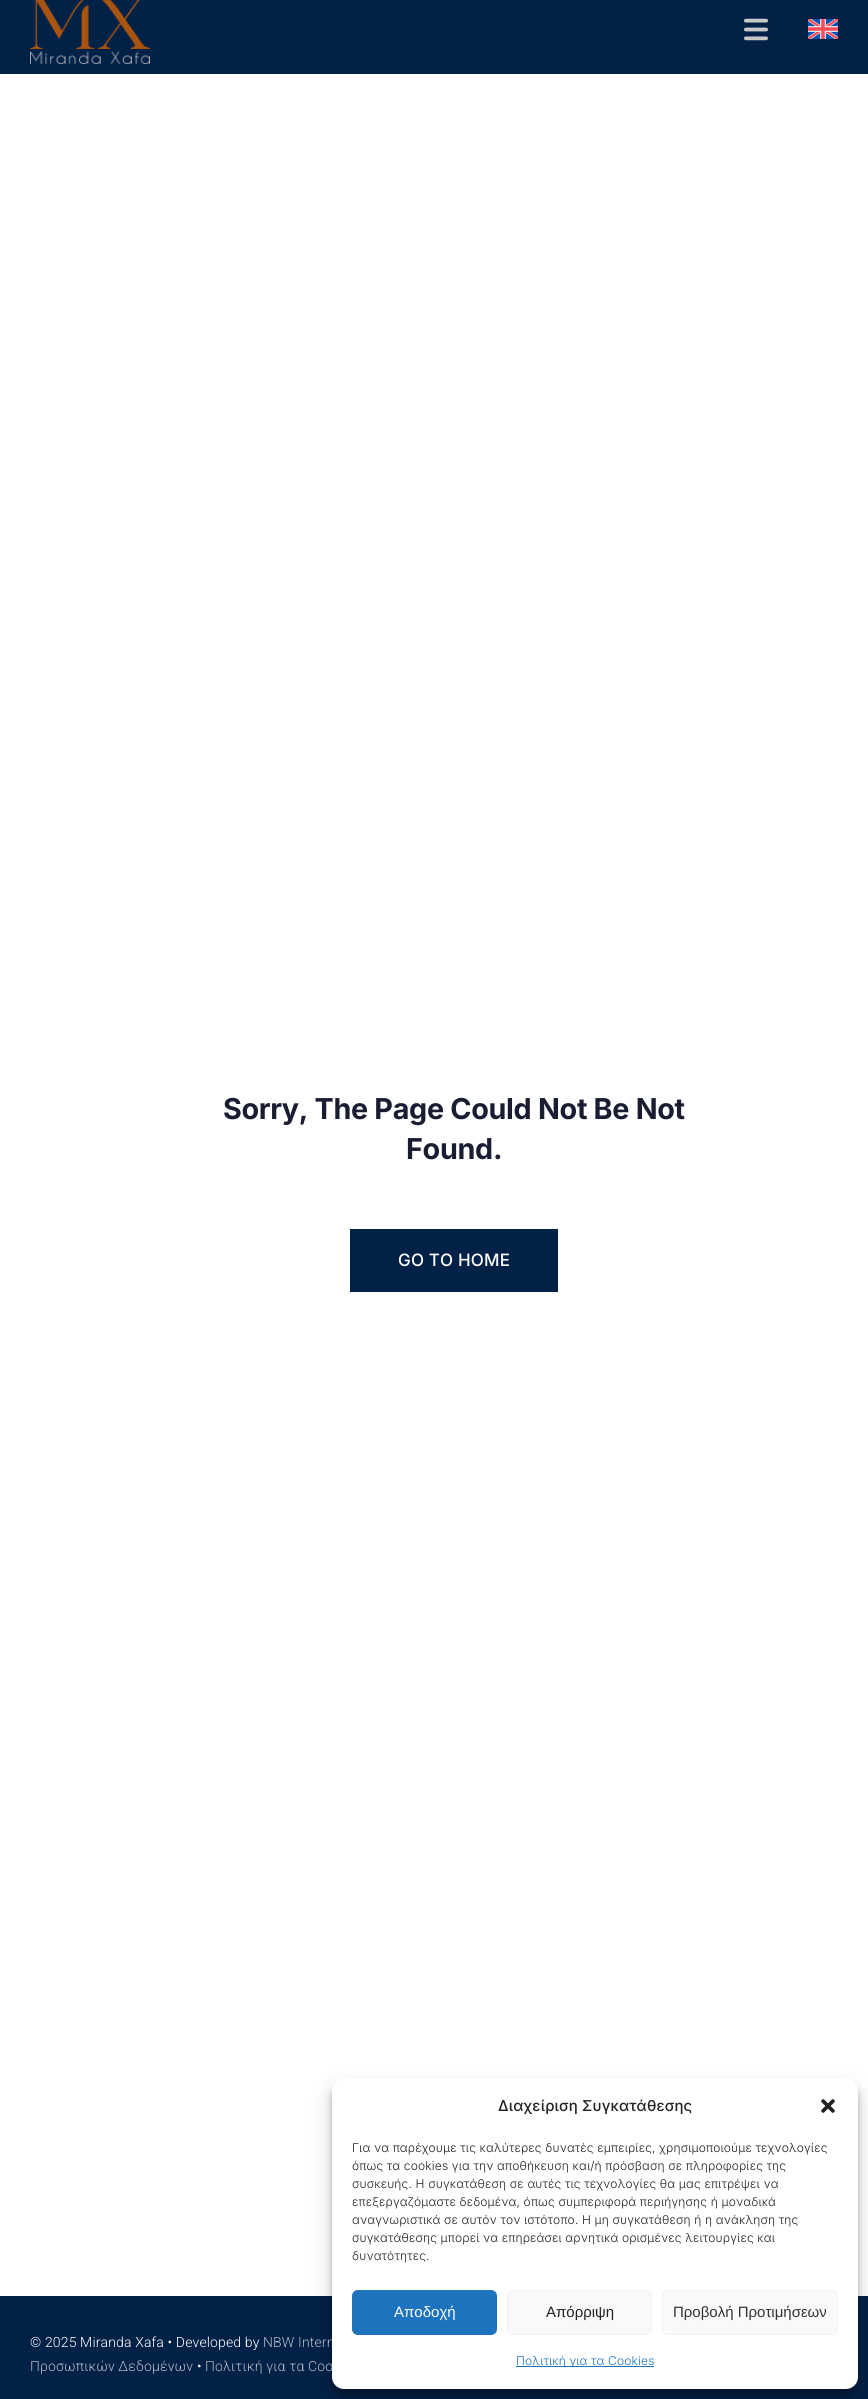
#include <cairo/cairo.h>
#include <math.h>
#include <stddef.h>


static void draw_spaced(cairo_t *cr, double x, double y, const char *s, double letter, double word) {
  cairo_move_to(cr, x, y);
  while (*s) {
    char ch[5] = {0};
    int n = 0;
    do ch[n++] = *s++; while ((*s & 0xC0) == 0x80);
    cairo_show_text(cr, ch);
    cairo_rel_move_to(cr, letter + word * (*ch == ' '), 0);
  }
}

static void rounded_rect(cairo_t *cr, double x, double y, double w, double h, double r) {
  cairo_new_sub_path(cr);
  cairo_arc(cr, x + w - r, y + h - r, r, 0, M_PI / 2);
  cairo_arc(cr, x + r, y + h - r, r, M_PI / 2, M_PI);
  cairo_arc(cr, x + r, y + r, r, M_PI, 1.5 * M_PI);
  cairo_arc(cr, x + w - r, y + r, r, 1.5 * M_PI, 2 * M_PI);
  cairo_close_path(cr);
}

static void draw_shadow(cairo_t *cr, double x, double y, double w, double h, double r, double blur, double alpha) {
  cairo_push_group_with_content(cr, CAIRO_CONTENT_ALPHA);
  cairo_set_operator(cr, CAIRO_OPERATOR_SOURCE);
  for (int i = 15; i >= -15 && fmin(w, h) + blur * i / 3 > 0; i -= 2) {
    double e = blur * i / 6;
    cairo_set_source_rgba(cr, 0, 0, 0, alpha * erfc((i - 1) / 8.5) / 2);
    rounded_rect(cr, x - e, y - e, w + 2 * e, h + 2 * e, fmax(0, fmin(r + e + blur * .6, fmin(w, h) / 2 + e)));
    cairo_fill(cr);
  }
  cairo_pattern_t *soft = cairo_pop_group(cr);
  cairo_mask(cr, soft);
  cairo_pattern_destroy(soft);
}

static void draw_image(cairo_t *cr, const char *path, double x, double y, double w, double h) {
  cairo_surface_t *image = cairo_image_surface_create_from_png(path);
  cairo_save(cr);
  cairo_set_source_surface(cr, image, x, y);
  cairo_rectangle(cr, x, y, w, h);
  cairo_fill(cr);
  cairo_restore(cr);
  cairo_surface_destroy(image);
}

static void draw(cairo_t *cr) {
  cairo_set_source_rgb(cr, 1, 1, 1);
  cairo_paint(cr);
  cairo_set_source_rgb(cr, 2 / 255.0, 33 / 255.0, 71 / 255.0);
  cairo_rectangle(cr, 0, 0, 868, 74);
  cairo_fill(cr);
  draw_image(cr, "images/1.png", 30, 0, 120, 64);
  draw_image(cr, "images/2.png", 744, 18, 24, 23);
  draw_image(cr, "images/3.png", 808, 19, 30, 20);
  cairo_rectangle(cr, 350, 1229, 208, 63);
  cairo_fill(cr);
  cairo_rectangle(cr, 0, 2296, 868, 103);
  cairo_fill(cr);
  cairo_set_source_rgb(cr, 0, 0, 0);
  draw_shadow(cr, 332, 2084, 526, 311, 12, 3, 0.23);
  draw_shadow(cr, 332, 2088, 526, 311, 12, 10, 0.19);
  cairo_select_font_face(cr, "Inter", CAIRO_FONT_SLANT_NORMAL, CAIRO_FONT_WEIGHT_BOLD);
  cairo_set_font_size(cr, 28.75);
  cairo_set_source_rgb(cr, 26 / 255.0, 29 / 255.0, 50 / 255.0);
  draw_spaced(cr, 223, 1119, "Sorry, The Page Could Not Be Not", -0.3, 0);
  draw_spaced(cr, 406, 1159, "Found.", -0.3, 0);
  cairo_select_font_face(cr, "Inter Medium", CAIRO_FONT_SLANT_NORMAL, CAIRO_FONT_WEIGHT_NORMAL);
  cairo_set_font_size(cr, 17);
  cairo_set_source_rgb(cr, 1, 1, 1);
  draw_spaced(cr, 398, 1266, "GO TO HOME", 0.17, 0);
  cairo_select_font_face(cr, "Roboto Light", CAIRO_FONT_SLANT_NORMAL, CAIRO_FONT_WEIGHT_NORMAL);
  cairo_set_font_size(cr, 14);
  draw_spaced(cr, 30, 2347, "© 2025 Miranda Xafa • Developed by", 0.15, 0);
  cairo_set_source_rgb(cr, 179 / 255.0, 188 / 255.0, 200 / 255.0);
  draw_spaced(cr, 263, 2347, "NBW Intern", 0.15, 0);
  draw_spaced(cr, 30, 2371, "Προσωπικών Δεδομένων", 0.15, 0);
  cairo_set_source_rgb(cr, 1, 1, 1);
  draw_spaced(cr, 197, 2371, "•", 0.15, 0);
  cairo_set_source_rgb(cr, 179 / 255.0, 188 / 255.0, 200 / 255.0);
  draw_spaced(cr, 205, 2371, "Πολιτική για τα Coo", 0.15, 0);
  cairo_set_source_rgb(cr, 1, 1, 1);
  rounded_rect(cr, 332, 2078, 526, 311, 12);
  cairo_fill(cr);
  cairo_select_font_face(cr, "Inter Medium", CAIRO_FONT_SLANT_NORMAL, CAIRO_FONT_WEIGHT_NORMAL);
  cairo_set_font_size(cr, 15);
  cairo_set_source_rgb(cr, 34 / 255.0, 34 / 255.0, 34 / 255.0);
  draw_spaced(cr, 498, 2111, "Διαχείριση Συγκατάθεσης", 0.17, 0);
  draw_image(cr, "images/4.png", 821, 2099, 14, 14);
  cairo_select_font_face(cr, "Inter Light", CAIRO_FONT_SLANT_NORMAL, CAIRO_FONT_WEIGHT_NORMAL);
  cairo_set_font_size(cr, 12);
  draw_spaced(cr, 352, 2152, "Για να παρέχουμε τις καλύτερες δυνατές εμπειρίες, χρησιμοποιούμε τεχνολογίες", 0.17, 0);
  draw_spaced(cr, 352, 2170, "όπως τα cookies για την αποθήκευση και/ή πρόσβαση σε πληροφορίες της", 0.17, 0);
  draw_spaced(cr, 352, 2188, "συσκευής. Η συγκατάθεση σε αυτές τις τεχνολογίες θα μας επιτρέψει να", 0.17, 0);
  draw_spaced(cr, 352, 2206, "επεξεργαζόμαστε δεδομένα, όπως συμπεριφορά περιήγησης ή μοναδικά", 0.17, 0);
  draw_spaced(cr, 352, 2224, "αναγνωριστικά σε αυτόν τον ιστότοπο. Η μη συγκατάθεση ή η ανάκληση της", 0.17, 0);
  draw_spaced(cr, 352, 2242, "συγκατάθεσης μπορεί να επηρεάσει αρνητικά ορισμένες λειτουργίες και", 0.17, 0);
  draw_spaced(cr, 352, 2260, "δυνατότητες.", 0.17, 0);
  cairo_set_source_rgb(cr, 30 / 255.0, 115 / 255.0, 190 / 255.0);
  rounded_rect(cr, 352.5, 2290.5, 144, 44, 5.5);
  cairo_fill_preserve(cr);
  cairo_set_line_width(cr, 1);
  cairo_stroke(cr);
  cairo_select_font_face(cr, "Liberation Sans", CAIRO_FONT_SLANT_NORMAL, CAIRO_FONT_WEIGHT_NORMAL);
  cairo_set_font_size(cr, 15);
  cairo_set_source_rgb(cr, 1, 1, 1);
  cairo_move_to(cr, 394, 2317);
  cairo_show_text(cr, "Αποδοχή");
  cairo_set_source_rgb(cr, 249 / 255.0, 249 / 255.0, 249 / 255.0);
  rounded_rect(cr, 507.5, 2290.5, 144, 44, 5.5);
  cairo_fill_preserve(cr);
  cairo_set_source_rgb(cr, 242 / 255.0, 242 / 255.0, 242 / 255.0);
  cairo_stroke(cr);
  cairo_set_source_rgb(cr, 34 / 255.0, 34 / 255.0, 34 / 255.0);
  cairo_move_to(cr, 546, 2317);
  cairo_show_text(cr, "Απόρριψη");
  cairo_set_source_rgb(cr, 249 / 255.0, 249 / 255.0, 249 / 255.0);
  rounded_rect(cr, 662.5, 2290.5, 175, 44, 5.5);
  cairo_fill_preserve(cr);
  cairo_set_source_rgb(cr, 242 / 255.0, 242 / 255.0, 242 / 255.0);
  cairo_stroke(cr);
  cairo_set_source_rgb(cr, 51 / 255.0, 51 / 255.0, 51 / 255.0);
  cairo_move_to(cr, 673, 2317);
  cairo_show_text(cr, "Προβολή Προτιμήσεων");
  cairo_set_source_rgb(cr, 30 / 255.0, 115 / 255.0, 190 / 255.0);
  cairo_rectangle(cr, 516, 2366, 138, 1);
  cairo_fill(cr);
  cairo_select_font_face(cr, "Inter Light", CAIRO_FONT_SLANT_NORMAL, CAIRO_FONT_WEIGHT_NORMAL);
  cairo_set_font_size(cr, 12);
  draw_spaced(cr, 516, 2365, "Πολιτική για τα Cookies", 0.17, 0);
}

int main(void) {
  cairo_surface_t *surface = cairo_image_surface_create(CAIRO_FORMAT_RGB24, 868, 2399);
  cairo_t *cr = cairo_create(surface);
  cairo_font_options_t *options = cairo_font_options_create();
  cairo_font_options_set_hint_metrics(options, CAIRO_HINT_METRICS_OFF);
  cairo_font_options_set_hint_style(options, CAIRO_HINT_STYLE_NONE);
  cairo_set_font_options(cr, options);
  cairo_set_miter_limit(cr, 4);
  draw(cr);
  cairo_surface_write_to_png(surface, "out.png");
  cairo_font_options_destroy(options);
  cairo_destroy(cr);
  cairo_surface_destroy(surface);
  return 0;
}
